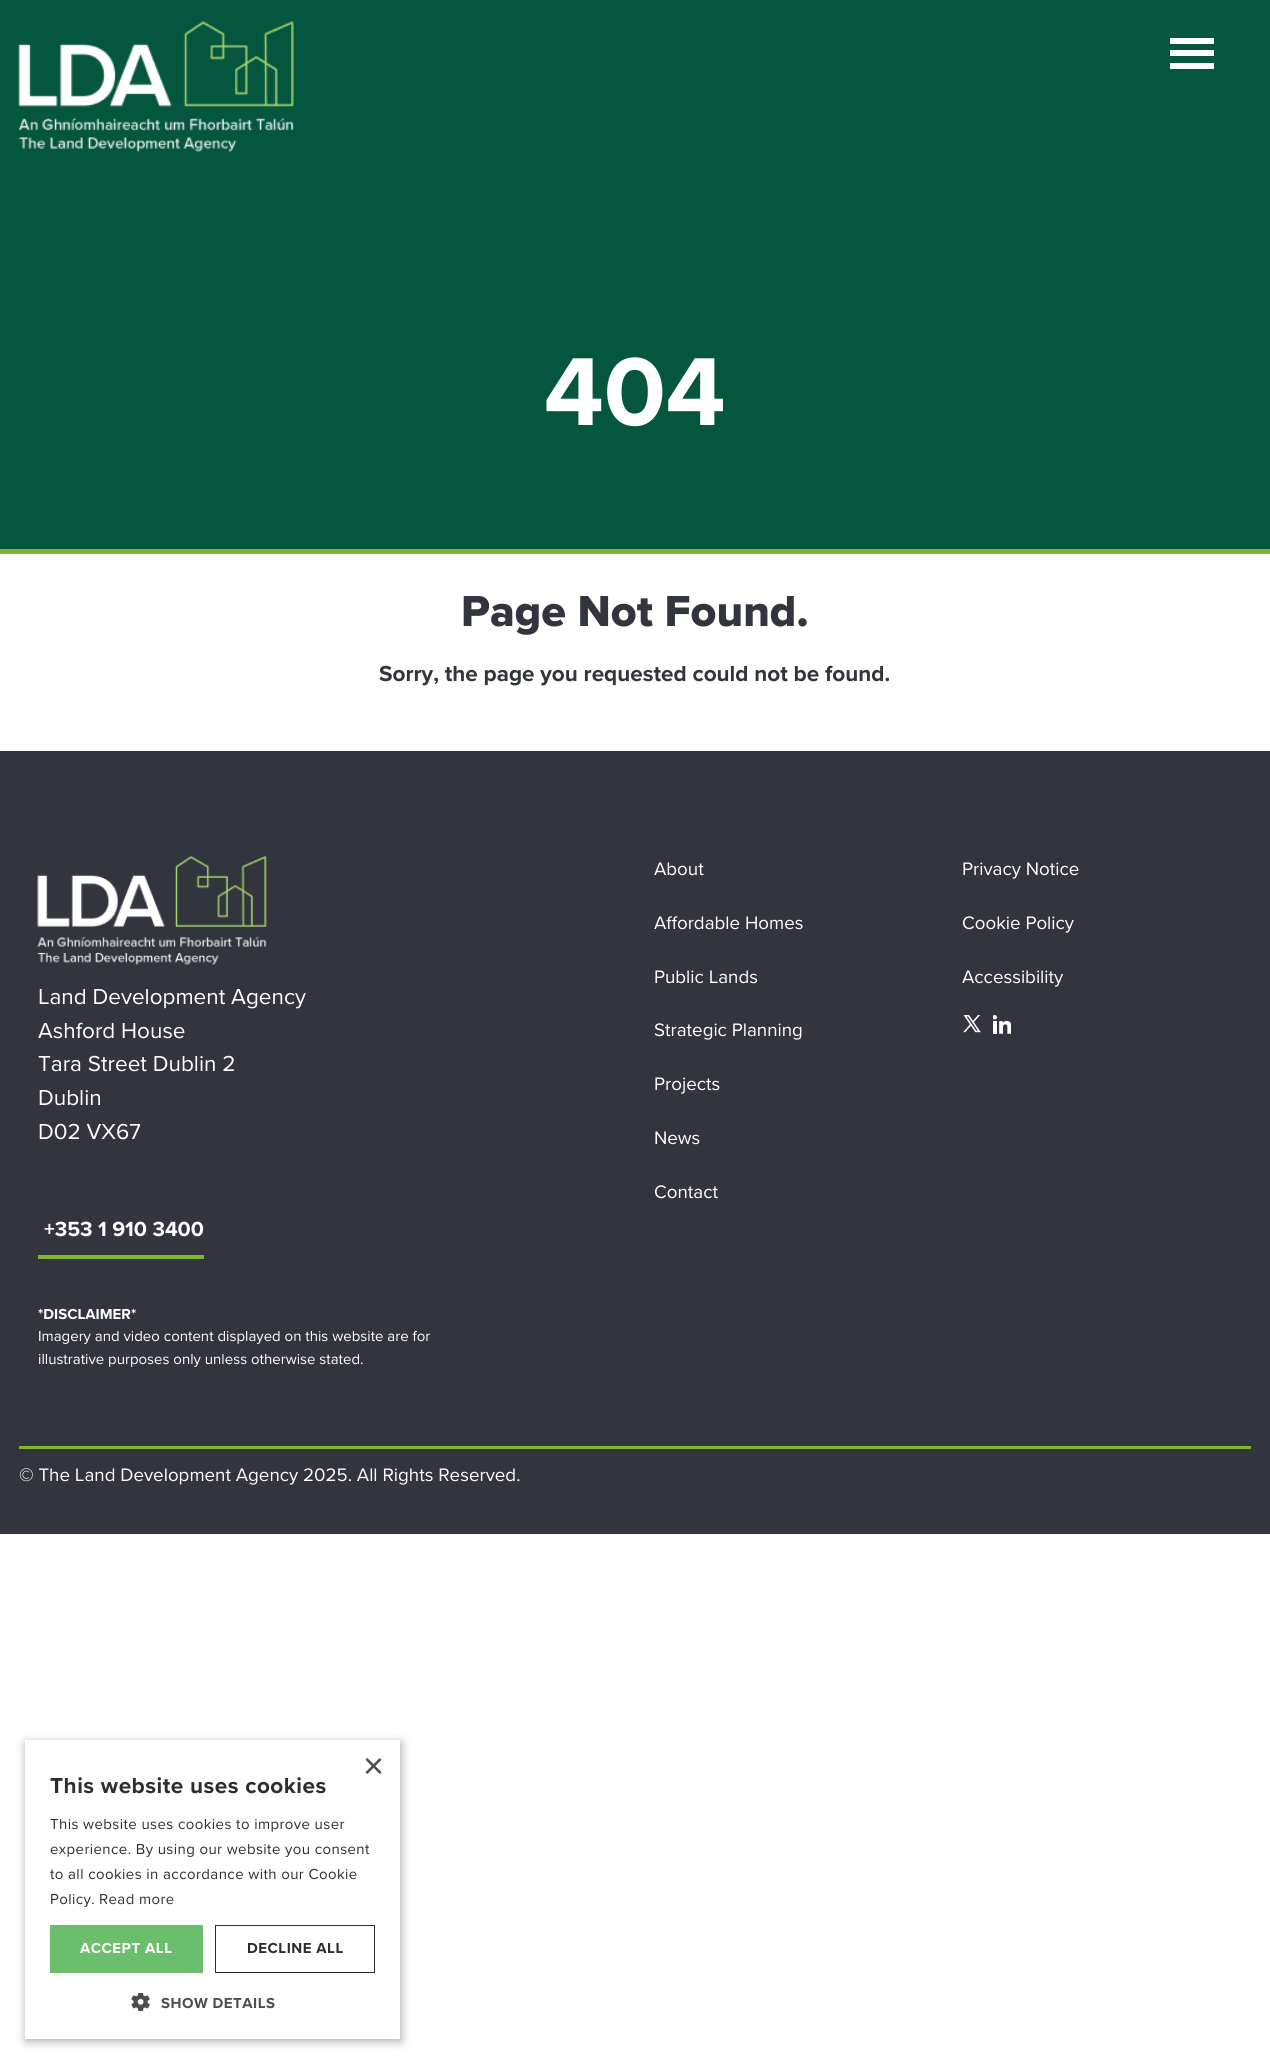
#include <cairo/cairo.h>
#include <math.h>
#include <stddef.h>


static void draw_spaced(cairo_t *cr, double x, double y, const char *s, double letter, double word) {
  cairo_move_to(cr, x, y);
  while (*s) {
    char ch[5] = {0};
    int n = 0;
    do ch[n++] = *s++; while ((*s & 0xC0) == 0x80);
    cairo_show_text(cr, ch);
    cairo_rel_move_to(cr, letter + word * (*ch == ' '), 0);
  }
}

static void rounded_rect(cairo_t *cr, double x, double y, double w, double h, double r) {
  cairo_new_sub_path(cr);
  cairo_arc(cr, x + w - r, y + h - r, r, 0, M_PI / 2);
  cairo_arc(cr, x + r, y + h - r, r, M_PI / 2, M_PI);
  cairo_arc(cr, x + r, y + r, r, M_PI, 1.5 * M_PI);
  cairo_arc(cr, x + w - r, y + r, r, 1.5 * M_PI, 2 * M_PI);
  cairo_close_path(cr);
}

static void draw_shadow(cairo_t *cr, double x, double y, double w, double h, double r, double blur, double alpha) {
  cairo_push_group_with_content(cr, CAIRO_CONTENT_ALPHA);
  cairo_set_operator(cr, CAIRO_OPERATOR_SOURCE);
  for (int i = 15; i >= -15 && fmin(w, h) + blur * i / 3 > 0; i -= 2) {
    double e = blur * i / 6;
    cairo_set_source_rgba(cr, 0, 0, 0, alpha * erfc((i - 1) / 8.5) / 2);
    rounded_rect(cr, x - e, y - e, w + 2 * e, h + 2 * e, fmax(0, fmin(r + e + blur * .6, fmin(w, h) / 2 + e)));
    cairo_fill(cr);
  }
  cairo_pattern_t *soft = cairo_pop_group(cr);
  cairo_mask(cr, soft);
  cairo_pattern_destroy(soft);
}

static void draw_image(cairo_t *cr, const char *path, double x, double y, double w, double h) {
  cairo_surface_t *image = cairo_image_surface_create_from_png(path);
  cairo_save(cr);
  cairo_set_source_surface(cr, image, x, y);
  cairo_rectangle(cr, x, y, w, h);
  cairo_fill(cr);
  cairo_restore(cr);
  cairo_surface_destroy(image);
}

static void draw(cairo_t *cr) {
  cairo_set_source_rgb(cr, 1, 1, 1);
  cairo_paint(cr);
  cairo_set_source_rgb(cr, 5 / 255.0, 86 / 255.0, 62 / 255.0);
  cairo_rectangle(cr, 0, 0, 1270, 549);
  cairo_fill(cr);
  draw_image(cr, "images/1.png", 18, 21, 276, 131);
  cairo_set_source_rgb(cr, 1, 1, 1);
  cairo_rectangle(cr, 1170, 50, 44, 6);
  cairo_fill(cr);
  cairo_rectangle(cr, 1170, 38, 44, 6);
  cairo_fill(cr);
  cairo_rectangle(cr, 1170, 63, 44, 6);
  cairo_fill(cr);
  cairo_set_source_rgb(cr, 129 / 255.0, 181 / 255.0, 45 / 255.0);
  cairo_rectangle(cr, 0, 549, 1270, 5);
  cairo_fill(cr);
  cairo_set_source_rgb(cr, 50 / 255.0, 53 / 255.0, 62 / 255.0);
  cairo_rectangle(cr, 0, 751, 1270, 783);
  cairo_fill(cr);
  draw_image(cr, "images/2.png", 963, 1015, 18, 18);
  draw_image(cr, "images/3.png", 993, 1015, 18, 19);
  draw_image(cr, "images/4.png", 37, 856, 230, 109);
  cairo_set_source_rgb(cr, 129 / 255.0, 181 / 255.0, 45 / 255.0);
  cairo_rectangle(cr, 38, 1255, 166, 4);
  cairo_fill(cr);
  cairo_rectangle(cr, 19, 1446, 1232, 3);
  cairo_fill(cr);
  cairo_set_source_rgb(cr, 0, 0, 0);
  draw_shadow(cr, 26, 1743, 375, 298, 0, 5, 0.35);
  cairo_set_source_rgb(cr, 1, 1, 1);
  cairo_rectangle(cr, 25, 1740, 375, 299);
  cairo_fill(cr);
  cairo_set_source_rgb(cr, 107 / 255.0, 190 / 255.0, 107 / 255.0);
  cairo_rectangle(cr, 50, 1925, 153, 48);
  cairo_fill(cr);
  cairo_rectangle(cr, 215.5, 1925.5, 159, 47);
  cairo_set_source_rgb(cr, 45 / 255.0, 45 / 255.0, 45 / 255.0);
  cairo_set_line_width(cr, 1);
  cairo_stroke(cr);
  draw_image(cr, "images/5.png", 131, 1993, 19, 18);
  cairo_select_font_face(cr, "Proxima Nova", CAIRO_FONT_SLANT_NORMAL, CAIRO_FONT_WEIGHT_BOLD);
  cairo_set_font_size(cr, 100);
  cairo_set_source_rgb(cr, 1, 1, 1);
  cairo_move_to(cr, 544, 425);
  cairo_show_text(cr, "404");
  cairo_select_font_face(cr, "Proxima Nova ExtraBold", CAIRO_FONT_SLANT_NORMAL, CAIRO_FONT_WEIGHT_NORMAL);
  cairo_set_font_size(cr, 45);
  cairo_set_source_rgb(cr, 50 / 255.0, 53 / 255.0, 62 / 255.0);
  cairo_move_to(cr, 461, 626);
  cairo_show_text(cr, "Page Not Found.");
  cairo_select_font_face(cr, "Proxima Nova", CAIRO_FONT_SLANT_NORMAL, CAIRO_FONT_WEIGHT_BOLD);
  cairo_set_font_size(cr, 22.5);
  cairo_move_to(cr, 379, 681);
  cairo_show_text(cr, "Sorry, the page you requested could not be found.");
  cairo_select_font_face(cr, "Proxima Nova", CAIRO_FONT_SLANT_NORMAL, CAIRO_FONT_WEIGHT_NORMAL);
  cairo_set_font_size(cr, 18.75);
  cairo_set_source_rgb(cr, 1, 1, 1);
  cairo_move_to(cr, 654, 875);
  cairo_show_text(cr, "About");
  cairo_move_to(cr, 654, 929);
  cairo_show_text(cr, "Affordable Homes");
  cairo_move_to(cr, 654, 983);
  cairo_show_text(cr, "Public Lands");
  cairo_move_to(cr, 654, 1036);
  cairo_show_text(cr, "Strategic Planning");
  cairo_move_to(cr, 654, 1090);
  cairo_show_text(cr, "Projects");
  cairo_move_to(cr, 654, 1144);
  cairo_show_text(cr, "News");
  cairo_move_to(cr, 654, 1198);
  cairo_show_text(cr, "Contact");
  cairo_move_to(cr, 962, 875);
  cairo_show_text(cr, "Privacy Notice");
  cairo_move_to(cr, 962, 929);
  cairo_show_text(cr, "Cookie Policy");
  cairo_move_to(cr, 962, 983);
  cairo_show_text(cr, "Accessibility");
  cairo_set_font_size(cr, 22.5);
  cairo_move_to(cr, 38, 1004);
  cairo_show_text(cr, "Land Development Agency");
  cairo_move_to(cr, 38, 1038);
  cairo_show_text(cr, "Ashford House");
  cairo_move_to(cr, 38, 1071);
  cairo_show_text(cr, "Tara Street Dublin 2");
  cairo_move_to(cr, 38, 1105);
  cairo_show_text(cr, "Dublin");
  cairo_move_to(cr, 38, 1139);
  cairo_show_text(cr, "D02 VX67");
  cairo_select_font_face(cr, "Proxima Nova", CAIRO_FONT_SLANT_NORMAL, CAIRO_FONT_WEIGHT_BOLD);
  cairo_set_font_size(cr, 21.25);
  cairo_move_to(cr, 44, 1236);
  cairo_show_text(cr, "+353 1 910 3400");
  cairo_set_font_size(cr, 15);
  cairo_move_to(cr, 38, 1319);
  cairo_show_text(cr, "*DISCLAIMER*");
  cairo_select_font_face(cr, "Proxima Nova", CAIRO_FONT_SLANT_NORMAL, CAIRO_FONT_WEIGHT_NORMAL);
  cairo_move_to(cr, 38, 1341);
  cairo_show_text(cr, "Imagery and video content displayed on this website are for");
  cairo_move_to(cr, 38, 1364);
  cairo_show_text(cr, "illustrative purposes only unless otherwise stated.");
  cairo_set_font_size(cr, 18.75);
  cairo_move_to(cr, 19, 1481);
  cairo_show_text(cr, "© The Land Development Agency 2025. All Rights Reserved.");
  cairo_select_font_face(cr, "Liberation Sans", CAIRO_FONT_SLANT_NORMAL, CAIRO_FONT_WEIGHT_NORMAL);
  cairo_set_font_size(cr, 36);
  cairo_set_source_rgb(cr, 77 / 255.0, 77 / 255.0, 77 / 255.0);
  cairo_move_to(cr, 363, 1778);
  cairo_show_text(cr, "×");
  cairo_select_font_face(cr, "Proxima Nova", CAIRO_FONT_SLANT_NORMAL, CAIRO_FONT_WEIGHT_BOLD);
  cairo_set_font_size(cr, 22.5);
  cairo_set_source_rgb(cr, 45 / 255.0, 45 / 255.0, 45 / 255.0);
  draw_spaced(cr, 50, 1793, "This website uses cookies", 0.5, 0);
  cairo_select_font_face(cr, "Proxima Nova", CAIRO_FONT_SLANT_NORMAL, CAIRO_FONT_WEIGHT_NORMAL);
  cairo_set_font_size(cr, 15);
  draw_spaced(cr, 50, 1829, "This website uses cookies to improve user", 0.4, 0);
  draw_spaced(cr, 50, 1854, "experience. By using our website you consent", 0.4, 0);
  draw_spaced(cr, 50, 1879, "to all cookies in accordance with our Cookie", 0.4, 0);
  draw_spaced(cr, 50, 1904, "Policy.", 0.4, 0);
  cairo_set_source_rgb(cr, 51 / 255.0, 51 / 255.0, 51 / 255.0);
  draw_spaced(cr, 99, 1904, "Read more", 0.4, 0);
  cairo_select_font_face(cr, "Proxima Nova", CAIRO_FONT_SLANT_NORMAL, CAIRO_FONT_WEIGHT_BOLD);
  cairo_set_source_rgb(cr, 1, 1, 1);
  draw_spaced(cr, 80, 1953, "ACCEPT ALL", 0.5, 0);
  cairo_set_source_rgb(cr, 45 / 255.0, 45 / 255.0, 45 / 255.0);
  draw_spaced(cr, 247, 1953, "DECLINE ALL", 0.5, 0);
  cairo_set_source_rgb(cr, 77 / 255.0, 77 / 255.0, 77 / 255.0);
  draw_spaced(cr, 161, 2008, "SHOW DETAILS", 0.5, 0);
}

int main(void) {
  cairo_surface_t *surface = cairo_image_surface_create(CAIRO_FORMAT_RGB24, 1270, 2063);
  cairo_t *cr = cairo_create(surface);
  cairo_font_options_t *options = cairo_font_options_create();
  cairo_font_options_set_hint_metrics(options, CAIRO_HINT_METRICS_OFF);
  cairo_font_options_set_hint_style(options, CAIRO_HINT_STYLE_NONE);
  cairo_set_font_options(cr, options);
  cairo_set_miter_limit(cr, 4);
  draw(cr);
  cairo_surface_write_to_png(surface, "out.png");
  cairo_font_options_destroy(options);
  cairo_destroy(cr);
  cairo_surface_destroy(surface);
  return 0;
}
